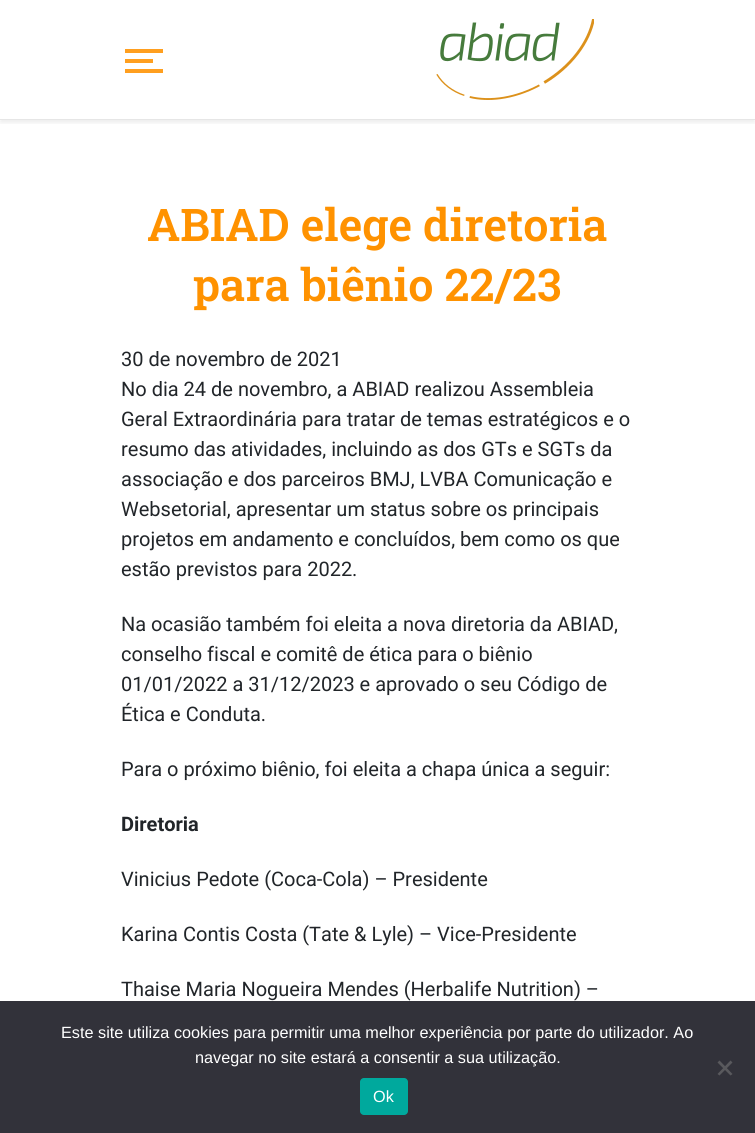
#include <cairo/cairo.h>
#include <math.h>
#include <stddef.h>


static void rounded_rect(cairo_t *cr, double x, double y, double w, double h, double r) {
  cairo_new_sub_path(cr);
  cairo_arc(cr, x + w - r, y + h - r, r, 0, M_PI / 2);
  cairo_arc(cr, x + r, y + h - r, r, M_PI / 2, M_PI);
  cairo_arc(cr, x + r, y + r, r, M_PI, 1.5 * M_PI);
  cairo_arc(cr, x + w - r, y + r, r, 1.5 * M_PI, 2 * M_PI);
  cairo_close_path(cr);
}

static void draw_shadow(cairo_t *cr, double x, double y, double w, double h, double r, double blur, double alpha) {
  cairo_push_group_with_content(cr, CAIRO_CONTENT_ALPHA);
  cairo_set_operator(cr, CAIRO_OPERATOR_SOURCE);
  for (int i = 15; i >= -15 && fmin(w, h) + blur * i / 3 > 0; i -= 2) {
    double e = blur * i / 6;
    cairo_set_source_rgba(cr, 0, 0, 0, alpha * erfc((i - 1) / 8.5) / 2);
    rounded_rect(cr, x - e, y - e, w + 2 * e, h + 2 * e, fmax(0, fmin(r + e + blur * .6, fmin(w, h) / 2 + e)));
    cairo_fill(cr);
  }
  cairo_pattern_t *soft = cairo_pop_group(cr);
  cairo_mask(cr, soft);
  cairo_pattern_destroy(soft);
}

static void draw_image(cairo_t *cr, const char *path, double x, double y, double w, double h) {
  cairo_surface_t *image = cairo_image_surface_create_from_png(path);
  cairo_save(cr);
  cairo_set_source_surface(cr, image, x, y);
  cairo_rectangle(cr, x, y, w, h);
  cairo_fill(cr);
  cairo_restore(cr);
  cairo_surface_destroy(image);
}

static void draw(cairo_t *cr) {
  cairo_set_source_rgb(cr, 1, 1, 1);
  cairo_paint(cr);
  cairo_save(cr);
  cairo_rectangle(cr, 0, 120, 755, 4);
  cairo_clip(cr);
  cairo_set_source_rgb(cr, 0, 0, 0);
  draw_shadow(cr, 0, 3, 755, 120, 0, 2.5, 0.07);
  cairo_restore(cr);
  cairo_set_source_rgb(cr, 230 / 255.0, 230 / 255.0, 230 / 255.0);
  cairo_rectangle(cr, 0, 119, 755, 1);
  cairo_fill(cr);
  cairo_set_source_rgb(cr, 1, 159 / 255.0, 31 / 255.0);
  cairo_rectangle(cr, 125, 49, 38, 4);
  cairo_fill(cr);
  cairo_rectangle(cr, 125, 59, 28, 4);
  cairo_fill(cr);
  cairo_rectangle(cr, 125, 69, 38, 4);
  cairo_fill(cr);
  draw_image(cr, "images/1.png", 436, 19, 158, 81);
  cairo_set_source_rgb(cr, 50 / 255.0, 50 / 255.0, 58 / 255.0);
  cairo_rectangle(cr, 0, 1001, 755, 132);
  cairo_fill(cr);
  cairo_set_source_rgb(cr, 89 / 255.0, 89 / 255.0, 93 / 255.0);
  cairo_new_path(cr);
  cairo_move_to(cr, 730.5, 1060.5);
  cairo_line_to(cr, 732.5, 1062.5);
  cairo_line_to(cr, 719.5, 1075.5);
  cairo_line_to(cr, 717.5, 1074);
  cairo_close_path(cr);
  cairo_fill(cr);
  cairo_new_path(cr);
  cairo_move_to(cr, 717.5, 1062.5);
  cairo_line_to(cr, 719.5, 1060.5);
  cairo_line_to(cr, 732.5, 1074);
  cairo_line_to(cr, 730.5, 1075.5);
  cairo_close_path(cr);
  cairo_fill(cr);
  cairo_set_source_rgb(cr, 0, 169 / 255.0, 157 / 255.0);
  rounded_rect(cr, 360, 1078, 48, 37, 4);
  cairo_fill(cr);
  cairo_select_font_face(cr, "Roboto Slab SemiBold", CAIRO_FONT_SLANT_NORMAL, CAIRO_FONT_WEIGHT_NORMAL);
  cairo_set_font_size(cr, 45);
  cairo_set_source_rgb(cr, 1, 146 / 255.0, 0);
  cairo_move_to(cr, 147, 241);
  cairo_show_text(cr, "ABIAD elege diretoria");
  cairo_move_to(cr, 193, 301);
  cairo_show_text(cr, "para biênio 22/23");
  cairo_select_font_face(cr, "Roboto", CAIRO_FONT_SLANT_NORMAL, CAIRO_FONT_WEIGHT_NORMAL);
  cairo_set_font_size(cr, 20);
  cairo_set_source_rgb(cr, 33 / 255.0, 37 / 255.0, 41 / 255.0);
  cairo_move_to(cr, 121, 366);
  cairo_show_text(cr, "30 de novembro de 2021");
  cairo_move_to(cr, 121, 396);
  cairo_show_text(cr, "No dia 24 de novembro, a ABIAD realizou Assembleia");
  cairo_move_to(cr, 121, 426);
  cairo_show_text(cr, "Geral Extraordinária para tratar de temas estratégicos e o");
  cairo_move_to(cr, 121, 456);
  cairo_show_text(cr, "resumo das atividades, incluindo as dos GTs e SGTs da");
  cairo_move_to(cr, 121, 486);
  cairo_show_text(cr, "associação e dos parceiros BMJ, LVBA Comunicação e");
  cairo_move_to(cr, 121, 516);
  cairo_show_text(cr, "Websetorial, apresentar um status sobre os principais");
  cairo_move_to(cr, 121, 546);
  cairo_show_text(cr, "projetos em andamento e concluídos, bem como os que");
  cairo_move_to(cr, 121, 576);
  cairo_show_text(cr, "estão previstos para 2022.");
  cairo_move_to(cr, 121, 631);
  cairo_show_text(cr, "Na ocasião também foi eleita a nova diretoria da ABIAD,");
  cairo_move_to(cr, 121, 661);
  cairo_show_text(cr, "conselho fiscal e comitê de ética para o biênio");
  cairo_move_to(cr, 121, 691);
  cairo_show_text(cr, "01/01/2022 a 31/12/2023 e aprovado o seu Código de");
  cairo_move_to(cr, 121, 721);
  cairo_show_text(cr, "Ética e Conduta.");
  cairo_move_to(cr, 121, 776);
  cairo_show_text(cr, "Para o próximo biênio, foi eleita a chapa única a seguir:");
  cairo_select_font_face(cr, "Roboto", CAIRO_FONT_SLANT_NORMAL, CAIRO_FONT_WEIGHT_BOLD);
  cairo_move_to(cr, 121, 831);
  cairo_show_text(cr, "Diretoria");
  cairo_select_font_face(cr, "Roboto", CAIRO_FONT_SLANT_NORMAL, CAIRO_FONT_WEIGHT_NORMAL);
  cairo_move_to(cr, 121, 886);
  cairo_show_text(cr, "Vinicius Pedote (Coca-Cola) – Presidente");
  cairo_move_to(cr, 121, 941);
  cairo_show_text(cr, "Karina Contis Costa (Tate & Lyle) – Vice-Presidente");
  cairo_move_to(cr, 121, 996);
  cairo_show_text(cr, "Thaise Maria Nogueira Mendes (Herbalife Nutrition) –");
  cairo_select_font_face(cr, "Liberation Sans", CAIRO_FONT_SLANT_NORMAL, CAIRO_FONT_WEIGHT_NORMAL);
  cairo_set_font_size(cr, 16.25);
  cairo_set_source_rgb(cr, 1, 1, 1);
  cairo_move_to(cr, 61, 1038);
  cairo_show_text(cr, "Este site utiliza cookies para permitir uma melhor experiência por parte do utilizador. Ao");
  cairo_move_to(cr, 195, 1063);
  cairo_show_text(cr, "navegar no site estará a consentir a sua utilização.");
  cairo_move_to(cr, 373, 1102);
  cairo_show_text(cr, "Ok");
}

int main(void) {
  cairo_surface_t *surface = cairo_image_surface_create(CAIRO_FORMAT_RGB24, 755, 1133);
  cairo_t *cr = cairo_create(surface);
  cairo_font_options_t *options = cairo_font_options_create();
  cairo_font_options_set_hint_metrics(options, CAIRO_HINT_METRICS_OFF);
  cairo_font_options_set_hint_style(options, CAIRO_HINT_STYLE_NONE);
  cairo_set_font_options(cr, options);
  cairo_set_miter_limit(cr, 4);
  draw(cr);
  cairo_surface_write_to_png(surface, "out.png");
  cairo_font_options_destroy(options);
  cairo_destroy(cr);
  cairo_surface_destroy(surface);
  return 0;
}
